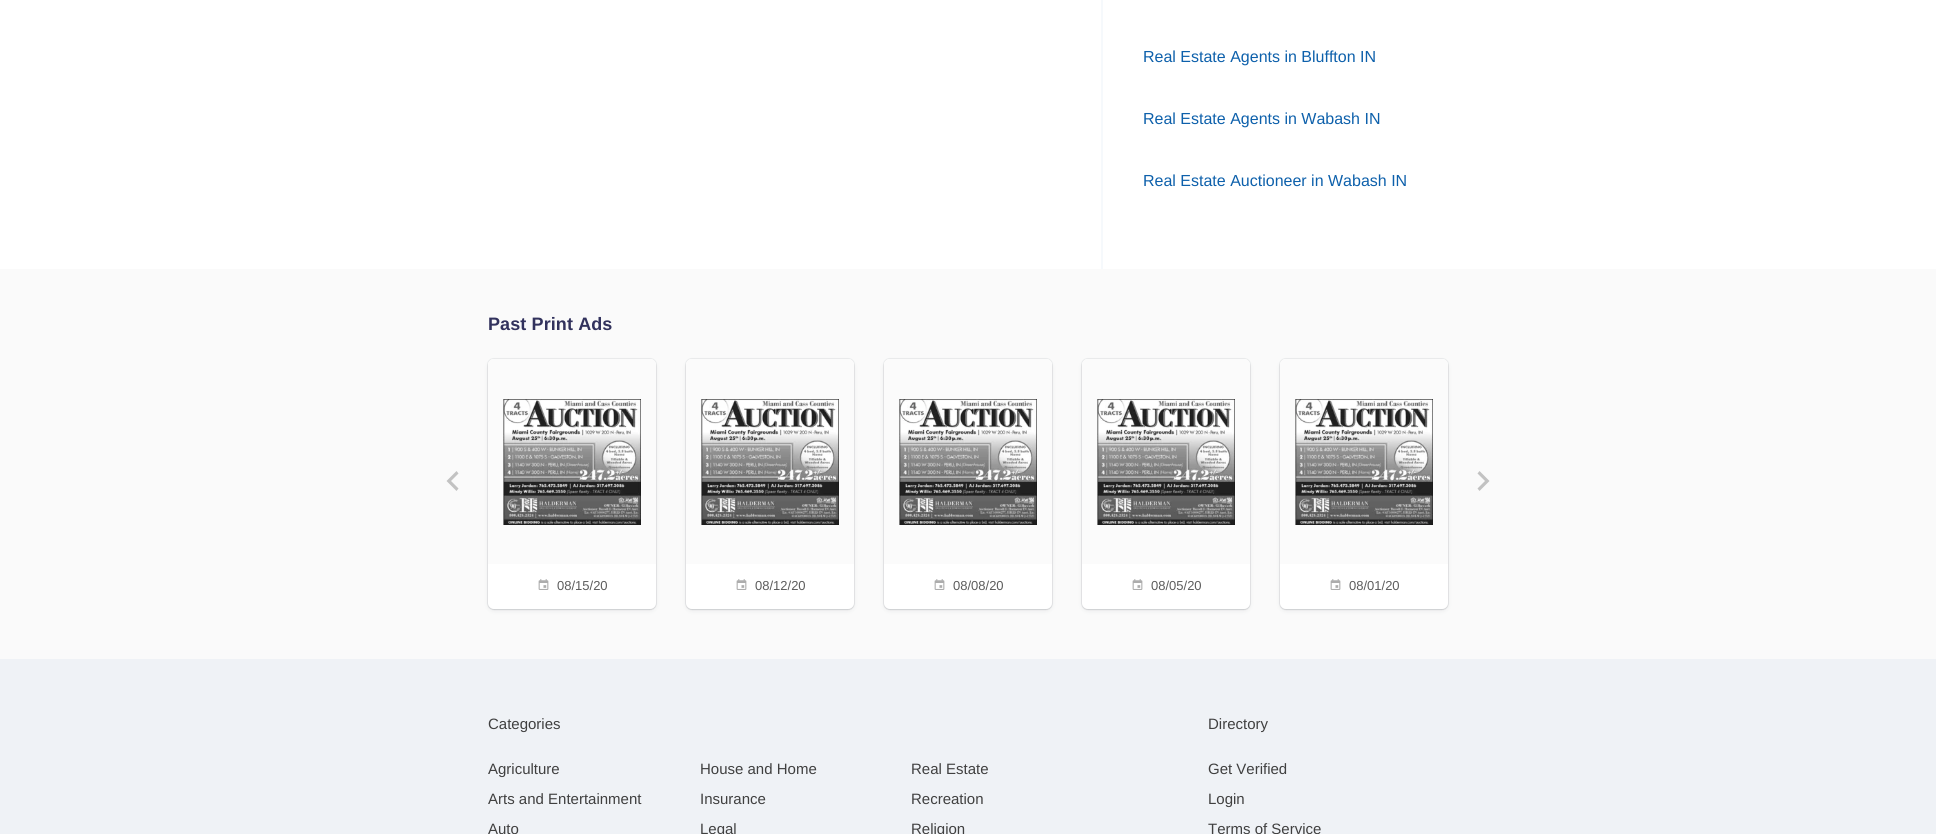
#include <cairo/cairo.h>
#include <math.h>
#include <stddef.h>


static void draw_spaced(cairo_t *cr, double x, double y, const char *s, double letter, double word) {
  cairo_move_to(cr, x, y);
  while (*s) {
    char ch[5] = {0};
    int n = 0;
    do ch[n++] = *s++; while ((*s & 0xC0) == 0x80);
    cairo_show_text(cr, ch);
    cairo_rel_move_to(cr, letter + word * (*ch == ' '), 0);
  }
}

static void rounded_rect(cairo_t *cr, double x, double y, double w, double h, double r) {
  cairo_new_sub_path(cr);
  cairo_arc(cr, x + w - r, y + h - r, r, 0, M_PI / 2);
  cairo_arc(cr, x + r, y + h - r, r, M_PI / 2, M_PI);
  cairo_arc(cr, x + r, y + r, r, M_PI, 1.5 * M_PI);
  cairo_arc(cr, x + w - r, y + r, r, 1.5 * M_PI, 2 * M_PI);
  cairo_close_path(cr);
}

static void draw_shadow(cairo_t *cr, double x, double y, double w, double h, double r, double blur, double alpha) {
  cairo_push_group_with_content(cr, CAIRO_CONTENT_ALPHA);
  cairo_set_operator(cr, CAIRO_OPERATOR_SOURCE);
  for (int i = 15; i >= -15 && fmin(w, h) + blur * i / 3 > 0; i -= 2) {
    double e = blur * i / 6;
    cairo_set_source_rgba(cr, 0, 0, 0, alpha * erfc((i - 1) / 8.5) / 2);
    rounded_rect(cr, x - e, y - e, w + 2 * e, h + 2 * e, fmax(0, fmin(r + e + blur * .6, fmin(w, h) / 2 + e)));
    cairo_fill(cr);
  }
  cairo_pattern_t *soft = cairo_pop_group(cr);
  cairo_mask(cr, soft);
  cairo_pattern_destroy(soft);
}

static void draw_image(cairo_t *cr, const char *path, double x, double y, double w, double h) {
  cairo_surface_t *image = cairo_image_surface_create_from_png(path);
  cairo_save(cr);
  cairo_set_source_surface(cr, image, x, y);
  cairo_rectangle(cr, x, y, w, h);
  cairo_fill(cr);
  cairo_restore(cr);
  cairo_surface_destroy(image);
}

static void draw(cairo_t *cr) {
  cairo_set_source_rgb(cr, 250 / 255.0, 250 / 255.0, 250 / 255.0);
  cairo_paint(cr);
  cairo_set_source_rgb(cr, 1, 1, 1);
  cairo_rectangle(cr, 0, 0, 1936, 269);
  cairo_fill(cr);
  cairo_set_source_rgb(cr, 246 / 255.0, 249 / 255.0, 252 / 255.0);
  cairo_rectangle(cr, 1101, 0, 2, 269);
  cairo_fill(cr);
  cairo_set_source_rgb(cr, 194 / 255.0, 194 / 255.0, 194 / 255.0);
  cairo_new_path(cr);
  cairo_move_to(cr, 458.5, 488.5);
  cairo_line_to(cr, 451, 481);
  cairo_line_to(cr, 458.5, 473.5);
  cairo_line_to(cr, 456.5, 471);
  cairo_line_to(cr, 446.5, 481);
  cairo_line_to(cr, 456.5, 491);
  cairo_close_path(cr);
  cairo_fill(cr);
  cairo_new_path(cr);
  cairo_move_to(cr, 1477.5, 488.5);
  cairo_line_to(cr, 1485, 481);
  cairo_line_to(cr, 1477.5, 473.5);
  cairo_line_to(cr, 1479.5, 471);
  cairo_line_to(cr, 1489.5, 481);
  cairo_line_to(cr, 1479.5, 491);
  cairo_close_path(cr);
  cairo_fill(cr);
  cairo_set_source_rgb(cr, 60 / 255.0, 66 / 255.0, 87 / 255.0);
  draw_shadow(cr, 488, 361, 168, 250, 6, 2.5, 0.08);
  rounded_rect(cr, 487.5, 358.5, 169, 251, 6.5);
  cairo_set_source_rgba(cr, 60 / 255.0, 66 / 255.0, 87 / 255.0, 0.08);
  cairo_set_line_width(cr, 1);
  cairo_stroke(cr);
  cairo_set_source_rgb(cr, 0, 0, 0);
  draw_shadow(cr, 488, 360, 168, 250, 6, 0.5, 0.08);
  cairo_set_source_rgb(cr, 1, 1, 1);
  rounded_rect(cr, 488, 359, 168, 250, 6);
  cairo_fill(cr);
  cairo_set_source_rgb(cr, 251 / 255.0, 251 / 255.0, 251 / 255.0);
  cairo_new_path(cr);
  cairo_move_to(cr, 494, 359);
  cairo_line_to(cr, 650, 359);
  cairo_curve_to(cr, 653.5, 359, 656, 361.5, 656, 365);
  cairo_line_to(cr, 656, 564);
  cairo_line_to(cr, 488, 564);
  cairo_line_to(cr, 488, 365);
  cairo_curve_to(cr, 488, 361.5, 490.5, 359, 494, 359);
  cairo_close_path(cr);
  cairo_fill(cr);
  draw_image(cr, "images/1.png", 503, 399, 138, 126);
  draw_image(cr, "images/2.png", 538, 579, 11, 11);
  cairo_set_source_rgb(cr, 60 / 255.0, 66 / 255.0, 87 / 255.0);
  draw_shadow(cr, 686, 361, 168, 250, 6, 2.5, 0.08);
  rounded_rect(cr, 685.5, 358.5, 169, 251, 6.5);
  cairo_set_source_rgba(cr, 60 / 255.0, 66 / 255.0, 87 / 255.0, 0.08);
  cairo_stroke(cr);
  cairo_set_source_rgb(cr, 0, 0, 0);
  draw_shadow(cr, 686, 360, 168, 250, 6, 0.5, 0.08);
  cairo_set_source_rgb(cr, 1, 1, 1);
  rounded_rect(cr, 686, 359, 168, 250, 6);
  cairo_fill(cr);
  cairo_set_source_rgb(cr, 251 / 255.0, 251 / 255.0, 251 / 255.0);
  cairo_new_path(cr);
  cairo_move_to(cr, 692, 359);
  cairo_line_to(cr, 848, 359);
  cairo_curve_to(cr, 851.5, 359, 854, 361.5, 854, 365);
  cairo_line_to(cr, 854, 564);
  cairo_line_to(cr, 686, 564);
  cairo_line_to(cr, 686, 365);
  cairo_curve_to(cr, 686, 361.5, 688.5, 359, 692, 359);
  cairo_close_path(cr);
  cairo_fill(cr);
  draw_image(cr, "images/1.png", 701, 399, 138, 126);
  draw_image(cr, "images/2.png", 736, 579, 11, 11);
  cairo_set_source_rgb(cr, 60 / 255.0, 66 / 255.0, 87 / 255.0);
  draw_shadow(cr, 884, 361, 168, 250, 6, 2.5, 0.08);
  rounded_rect(cr, 883.5, 358.5, 169, 251, 6.5);
  cairo_set_source_rgba(cr, 60 / 255.0, 66 / 255.0, 87 / 255.0, 0.08);
  cairo_stroke(cr);
  cairo_set_source_rgb(cr, 0, 0, 0);
  draw_shadow(cr, 884, 360, 168, 250, 6, 0.5, 0.08);
  cairo_set_source_rgb(cr, 1, 1, 1);
  rounded_rect(cr, 884, 359, 168, 250, 6);
  cairo_fill(cr);
  cairo_set_source_rgb(cr, 251 / 255.0, 251 / 255.0, 251 / 255.0);
  cairo_new_path(cr);
  cairo_move_to(cr, 890, 359);
  cairo_line_to(cr, 1046, 359);
  cairo_curve_to(cr, 1049.5, 359, 1052, 361.5, 1052, 365);
  cairo_line_to(cr, 1052, 564);
  cairo_line_to(cr, 884, 564);
  cairo_line_to(cr, 884, 365);
  cairo_curve_to(cr, 884, 361.5, 886.5, 359, 890, 359);
  cairo_close_path(cr);
  cairo_fill(cr);
  draw_image(cr, "images/1.png", 899, 399, 138, 126);
  draw_image(cr, "images/2.png", 934, 579, 11, 11);
  cairo_set_source_rgb(cr, 60 / 255.0, 66 / 255.0, 87 / 255.0);
  draw_shadow(cr, 1082, 361, 168, 250, 6, 2.5, 0.08);
  rounded_rect(cr, 1081.5, 358.5, 169, 251, 6.5);
  cairo_set_source_rgba(cr, 60 / 255.0, 66 / 255.0, 87 / 255.0, 0.08);
  cairo_stroke(cr);
  cairo_set_source_rgb(cr, 0, 0, 0);
  draw_shadow(cr, 1082, 360, 168, 250, 6, 0.5, 0.08);
  cairo_set_source_rgb(cr, 1, 1, 1);
  rounded_rect(cr, 1082, 359, 168, 250, 6);
  cairo_fill(cr);
  cairo_set_source_rgb(cr, 251 / 255.0, 251 / 255.0, 251 / 255.0);
  cairo_new_path(cr);
  cairo_move_to(cr, 1088, 359);
  cairo_line_to(cr, 1244, 359);
  cairo_curve_to(cr, 1247.5, 359, 1250, 361.5, 1250, 365);
  cairo_line_to(cr, 1250, 564);
  cairo_line_to(cr, 1082, 564);
  cairo_line_to(cr, 1082, 365);
  cairo_curve_to(cr, 1082, 361.5, 1084.5, 359, 1088, 359);
  cairo_close_path(cr);
  cairo_fill(cr);
  draw_image(cr, "images/1.png", 1097, 399, 138, 126);
  draw_image(cr, "images/2.png", 1132, 579, 11, 11);
  cairo_set_source_rgb(cr, 60 / 255.0, 66 / 255.0, 87 / 255.0);
  draw_shadow(cr, 1280, 361, 168, 250, 6, 2.5, 0.08);
  rounded_rect(cr, 1279.5, 358.5, 169, 251, 6.5);
  cairo_set_source_rgba(cr, 60 / 255.0, 66 / 255.0, 87 / 255.0, 0.08);
  cairo_stroke(cr);
  cairo_set_source_rgb(cr, 0, 0, 0);
  draw_shadow(cr, 1280, 360, 168, 250, 6, 0.5, 0.08);
  cairo_set_source_rgb(cr, 1, 1, 1);
  rounded_rect(cr, 1280, 359, 168, 250, 6);
  cairo_fill(cr);
  cairo_set_source_rgb(cr, 251 / 255.0, 251 / 255.0, 251 / 255.0);
  cairo_new_path(cr);
  cairo_move_to(cr, 1286, 359);
  cairo_line_to(cr, 1442, 359);
  cairo_curve_to(cr, 1445.5, 359, 1448, 361.5, 1448, 365);
  cairo_line_to(cr, 1448, 564);
  cairo_line_to(cr, 1280, 564);
  cairo_line_to(cr, 1280, 365);
  cairo_curve_to(cr, 1280, 361.5, 1282.5, 359, 1286, 359);
  cairo_close_path(cr);
  cairo_fill(cr);
  draw_image(cr, "images/1.png", 1295, 399, 138, 126);
  draw_image(cr, "images/2.png", 1330, 579, 11, 11);
  cairo_set_source_rgb(cr, 239 / 255.0, 242 / 255.0, 246 / 255.0);
  cairo_rectangle(cr, 0, 659, 1936, 175);
  cairo_fill(cr);
  cairo_select_font_face(cr, "Liberation Sans", CAIRO_FONT_SLANT_NORMAL, CAIRO_FONT_WEIGHT_NORMAL);
  cairo_set_font_size(cr, 16);
  cairo_set_source_rgb(cr, 13 / 255.0, 96 / 255.0, 171 / 255.0);
  cairo_move_to(cr, 1143, 62);
  cairo_show_text(cr, "Real Estate Agents in Bluffton IN");
  cairo_move_to(cr, 1143, 124);
  cairo_show_text(cr, "Real Estate Agents in Wabash IN");
  cairo_move_to(cr, 1143, 186);
  cairo_show_text(cr, "Real Estate Auctioneer in Wabash IN");
  cairo_select_font_face(cr, "Liberation Sans", CAIRO_FONT_SLANT_NORMAL, CAIRO_FONT_WEIGHT_BOLD);
  cairo_set_font_size(cr, 18);
  cairo_set_source_rgb(cr, 50 / 255.0, 50 / 255.0, 93 / 255.0);
  draw_spaced(cr, 488, 330, "Past Print Ads", 0.1, 0);
  cairo_select_font_face(cr, "Liberation Sans", CAIRO_FONT_SLANT_NORMAL, CAIRO_FONT_WEIGHT_NORMAL);
  cairo_set_font_size(cr, 13);
  cairo_set_source_rgb(cr, 92 / 255.0, 92 / 255.0, 92 / 255.0);
  cairo_move_to(cr, 557, 590);
  cairo_show_text(cr, "08/15/20");
  cairo_move_to(cr, 755, 590);
  cairo_show_text(cr, "08/12/20");
  cairo_move_to(cr, 953, 590);
  cairo_show_text(cr, "08/08/20");
  cairo_move_to(cr, 1151, 590);
  cairo_show_text(cr, "08/05/20");
  cairo_move_to(cr, 1349, 590);
  cairo_show_text(cr, "08/01/20");
  cairo_set_font_size(cr, 15);
  cairo_set_source_rgb(cr, 64 / 255.0, 64 / 255.0, 64 / 255.0);
  cairo_move_to(cr, 488, 729);
  cairo_show_text(cr, "Categories");
  cairo_move_to(cr, 488, 774);
  cairo_show_text(cr, "Agriculture");
  cairo_move_to(cr, 700, 774);
  cairo_show_text(cr, "House and Home");
  cairo_move_to(cr, 911, 774);
  cairo_show_text(cr, "Real Estate");
  cairo_move_to(cr, 488, 804);
  cairo_show_text(cr, "Arts and Entertainment");
  cairo_move_to(cr, 700, 804);
  cairo_show_text(cr, "Insurance");
  cairo_move_to(cr, 911, 804);
  cairo_show_text(cr, "Recreation");
  cairo_move_to(cr, 488, 834);
  cairo_show_text(cr, "Auto");
  cairo_move_to(cr, 700, 834);
  cairo_show_text(cr, "Legal");
  cairo_move_to(cr, 911, 834);
  cairo_show_text(cr, "Religion");
  cairo_move_to(cr, 1208, 729);
  cairo_show_text(cr, "Directory");
  cairo_move_to(cr, 1208, 774);
  cairo_show_text(cr, "Get Verified");
  cairo_move_to(cr, 1208, 804);
  cairo_show_text(cr, "Login");
  cairo_move_to(cr, 1208, 834);
  cairo_show_text(cr, "Terms of Service");
}

int main(void) {
  cairo_surface_t *surface = cairo_image_surface_create(CAIRO_FORMAT_RGB24, 1936, 834);
  cairo_t *cr = cairo_create(surface);
  cairo_font_options_t *options = cairo_font_options_create();
  cairo_font_options_set_hint_metrics(options, CAIRO_HINT_METRICS_OFF);
  cairo_font_options_set_hint_style(options, CAIRO_HINT_STYLE_NONE);
  cairo_set_font_options(cr, options);
  cairo_set_miter_limit(cr, 4);
  draw(cr);
  cairo_surface_write_to_png(surface, "out.png");
  cairo_font_options_destroy(options);
  cairo_destroy(cr);
  cairo_surface_destroy(surface);
  return 0;
}
